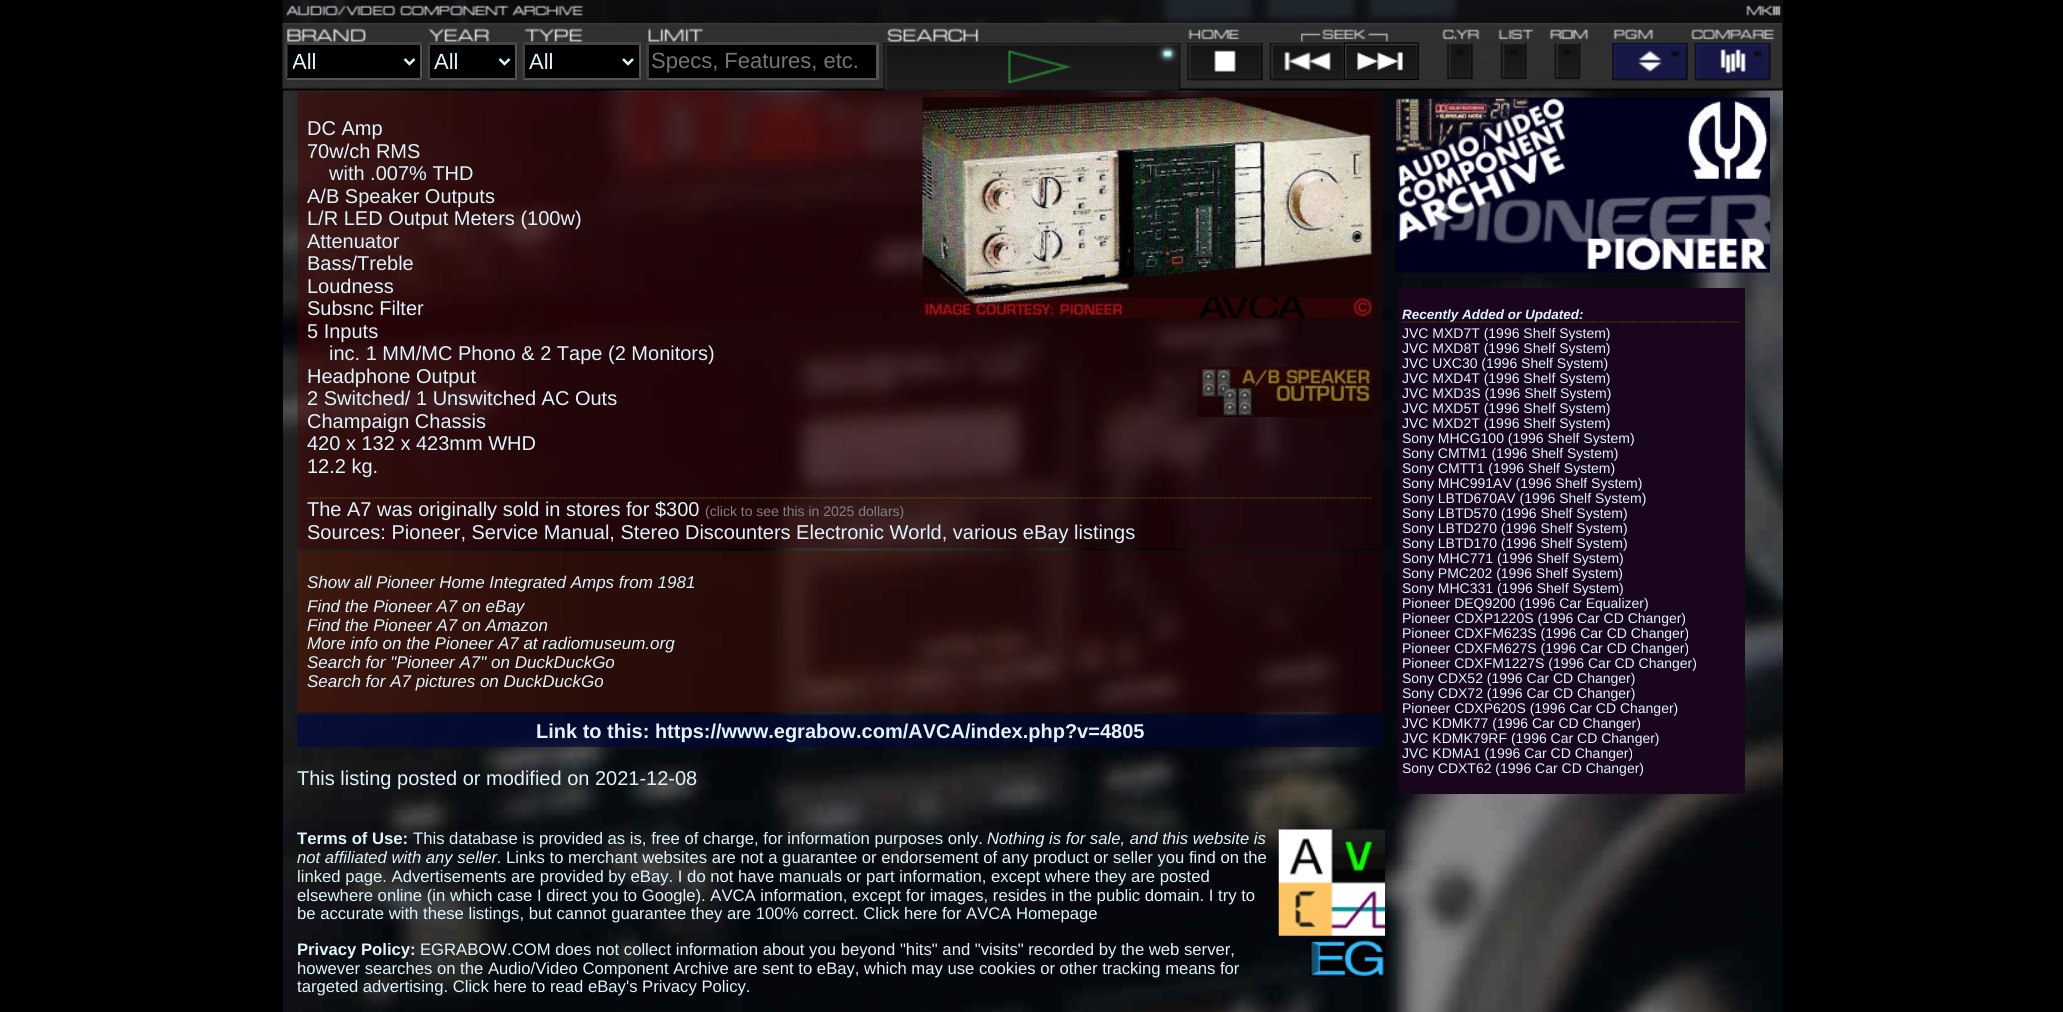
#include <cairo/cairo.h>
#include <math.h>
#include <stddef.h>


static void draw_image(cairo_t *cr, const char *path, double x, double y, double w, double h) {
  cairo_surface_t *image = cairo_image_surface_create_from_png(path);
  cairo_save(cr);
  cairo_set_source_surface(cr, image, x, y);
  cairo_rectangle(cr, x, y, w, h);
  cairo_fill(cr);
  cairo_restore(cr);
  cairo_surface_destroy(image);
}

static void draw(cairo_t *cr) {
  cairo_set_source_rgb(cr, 0, 0, 0);
  cairo_paint(cr);
  draw_image(cr, "images/1.png", 282, 0, 1501, 23);
  draw_image(cr, "images/2.png", 286, 5, 298, 11);
  draw_image(cr, "images/3.png", 1746, 5, 35, 11);
  draw_image(cr, "images/26.png", 283, 90, 1500, 922);
  draw_image(cr, "images/4.png", 282, 23, 1501, 68);
  draw_image(cr, "images/5.png", 287, 28, 80, 14);
  draw_image(cr, "images/6.png", 428, 28, 62, 14);
  draw_image(cr, "images/7.png", 524, 28, 59, 14);
  draw_image(cr, "images/8.png", 648, 28, 56, 14);
  draw_image(cr, "images/9.png", 887, 28, 92, 15);
  draw_image(cr, "images/10.png", 1188, 29, 52, 11);
  draw_image(cr, "images/11.png", 1301, 29, 88, 13);
  draw_image(cr, "images/12.png", 1442, 29, 38, 11);
  draw_image(cr, "images/13.png", 1498, 28, 36, 12);
  draw_image(cr, "images/14.png", 1549, 29, 40, 11);
  draw_image(cr, "images/15.png", 1613, 28, 41, 12);
  draw_image(cr, "images/16.png", 1691, 29, 84, 11);
  cairo_set_source_rgb(cr, 0, 0, 0);
  cairo_rectangle(cr, 285, 43, 138, 37);
  cairo_fill(cr);
  cairo_set_source_rgb(cr, 68 / 255.0, 68 / 255.0, 68 / 255.0);
  cairo_new_path(cr);
  cairo_move_to(cr, 285, 42);
  cairo_line_to(cr, 422, 42);
  cairo_line_to(cr, 420, 45);
  cairo_line_to(cr, 288, 45);
  cairo_close_path(cr);
  cairo_fill(cr);
  cairo_set_source_rgb(cr, 85 / 255.0, 85 / 255.0, 85 / 255.0);
  cairo_new_path(cr);
  cairo_move_to(cr, 422.5, 42.5);
  cairo_line_to(cr, 422.5, 80);
  cairo_line_to(cr, 420, 77.5);
  cairo_line_to(cr, 420, 45);
  cairo_close_path(cr);
  cairo_fill(cr);
  cairo_new_path(cr);
  cairo_move_to(cr, 422, 80);
  cairo_line_to(cr, 285, 80);
  cairo_line_to(cr, 288, 78);
  cairo_line_to(cr, 420, 78);
  cairo_close_path(cr);
  cairo_fill(cr);
  cairo_set_source_rgb(cr, 64 / 255.0, 64 / 255.0, 64 / 255.0);
  cairo_new_path(cr);
  cairo_move_to(cr, 285, 80);
  cairo_line_to(cr, 285, 42.5);
  cairo_line_to(cr, 287.5, 45);
  cairo_line_to(cr, 287.5, 77.5);
  cairo_close_path(cr);
  cairo_fill(cr);
  cairo_new_path(cr);
  cairo_move_to(cr, 404.5, 59);
  cairo_line_to(cr, 409.5, 64);
  cairo_line_to(cr, 414.5, 59);
  cairo_set_source_rgb(cr, 222 / 255.0, 245 / 255.0, 1);
  cairo_set_line_width(cr, 2.5);
  cairo_stroke(cr);
  cairo_set_source_rgb(cr, 0, 0, 0);
  cairo_rectangle(cr, 428, 43, 90, 37);
  cairo_fill(cr);
  cairo_set_source_rgb(cr, 68 / 255.0, 68 / 255.0, 68 / 255.0);
  cairo_new_path(cr);
  cairo_move_to(cr, 428, 42);
  cairo_line_to(cr, 518, 42);
  cairo_line_to(cr, 515, 45);
  cairo_line_to(cr, 430, 45);
  cairo_close_path(cr);
  cairo_fill(cr);
  cairo_set_source_rgb(cr, 85 / 255.0, 85 / 255.0, 85 / 255.0);
  cairo_new_path(cr);
  cairo_move_to(cr, 517.5, 42.5);
  cairo_line_to(cr, 517.5, 80);
  cairo_line_to(cr, 515, 77.5);
  cairo_line_to(cr, 515, 45);
  cairo_close_path(cr);
  cairo_fill(cr);
  cairo_new_path(cr);
  cairo_move_to(cr, 518, 80);
  cairo_line_to(cr, 428, 80);
  cairo_line_to(cr, 430, 78);
  cairo_line_to(cr, 515, 78);
  cairo_close_path(cr);
  cairo_fill(cr);
  cairo_set_source_rgb(cr, 64 / 255.0, 64 / 255.0, 64 / 255.0);
  cairo_new_path(cr);
  cairo_move_to(cr, 427.5, 80);
  cairo_line_to(cr, 427.5, 42.5);
  cairo_line_to(cr, 430, 45);
  cairo_line_to(cr, 430, 77.5);
  cairo_close_path(cr);
  cairo_fill(cr);
  cairo_new_path(cr);
  cairo_move_to(cr, 499.5, 59);
  cairo_line_to(cr, 504.5, 64);
  cairo_line_to(cr, 509.5, 59);
  cairo_set_source_rgb(cr, 222 / 255.0, 245 / 255.0, 1);
  cairo_stroke(cr);
  cairo_set_source_rgb(cr, 0, 0, 0);
  cairo_rectangle(cr, 523, 43, 118, 37);
  cairo_fill(cr);
  cairo_set_source_rgb(cr, 68 / 255.0, 68 / 255.0, 68 / 255.0);
  cairo_new_path(cr);
  cairo_move_to(cr, 522, 42);
  cairo_line_to(cr, 641, 42);
  cairo_line_to(cr, 639, 45);
  cairo_line_to(cr, 525, 45);
  cairo_close_path(cr);
  cairo_fill(cr);
  cairo_set_source_rgb(cr, 85 / 255.0, 85 / 255.0, 85 / 255.0);
  cairo_new_path(cr);
  cairo_move_to(cr, 641, 42.5);
  cairo_line_to(cr, 641, 80);
  cairo_line_to(cr, 639, 77.5);
  cairo_line_to(cr, 639, 45);
  cairo_close_path(cr);
  cairo_fill(cr);
  cairo_new_path(cr);
  cairo_move_to(cr, 641, 80);
  cairo_line_to(cr, 522, 80);
  cairo_line_to(cr, 525, 78);
  cairo_line_to(cr, 639, 78);
  cairo_close_path(cr);
  cairo_fill(cr);
  cairo_set_source_rgb(cr, 64 / 255.0, 64 / 255.0, 64 / 255.0);
  cairo_new_path(cr);
  cairo_move_to(cr, 522.5, 80);
  cairo_line_to(cr, 522.5, 42.5);
  cairo_line_to(cr, 525, 45);
  cairo_line_to(cr, 525, 77.5);
  cairo_close_path(cr);
  cairo_fill(cr);
  cairo_new_path(cr);
  cairo_move_to(cr, 623, 59);
  cairo_line_to(cr, 628, 64);
  cairo_line_to(cr, 633, 59);
  cairo_set_source_rgb(cr, 222 / 255.0, 245 / 255.0, 1);
  cairo_stroke(cr);
  cairo_set_source_rgb(cr, 0, 0, 0);
  cairo_rectangle(cr, 646, 43, 233, 37);
  cairo_fill(cr);
  cairo_set_source_rgb(cr, 68 / 255.0, 68 / 255.0, 68 / 255.0);
  cairo_new_path(cr);
  cairo_move_to(cr, 646, 42);
  cairo_line_to(cr, 879, 42);
  cairo_line_to(cr, 876, 45);
  cairo_line_to(cr, 649, 45);
  cairo_close_path(cr);
  cairo_fill(cr);
  cairo_set_source_rgb(cr, 85 / 255.0, 85 / 255.0, 85 / 255.0);
  cairo_new_path(cr);
  cairo_move_to(cr, 879, 42.5);
  cairo_line_to(cr, 879, 80);
  cairo_line_to(cr, 876, 77.5);
  cairo_line_to(cr, 876, 45);
  cairo_close_path(cr);
  cairo_fill(cr);
  cairo_new_path(cr);
  cairo_move_to(cr, 879, 80);
  cairo_line_to(cr, 646, 80);
  cairo_line_to(cr, 649, 78);
  cairo_line_to(cr, 876, 78);
  cairo_close_path(cr);
  cairo_fill(cr);
  cairo_set_source_rgb(cr, 64 / 255.0, 64 / 255.0, 64 / 255.0);
  cairo_new_path(cr);
  cairo_move_to(cr, 646, 80);
  cairo_line_to(cr, 646, 42.5);
  cairo_line_to(cr, 649, 45);
  cairo_line_to(cr, 649, 77.5);
  cairo_close_path(cr);
  cairo_fill(cr);
  draw_image(cr, "images/17.png", 883, 43, 298, 48);
  draw_image(cr, "images/18.png", 1187, 43, 76, 38);
  draw_image(cr, "images/19.png", 1269, 43, 76, 38);
  draw_image(cr, "images/20.png", 1343, 42, 76, 38);
  draw_image(cr, "images/21.png", 1447, 43, 26, 37);
  draw_image(cr, "images/22.png", 1500, 43, 27, 37);
  draw_image(cr, "images/23.png", 1554, 43, 27, 37);
  draw_image(cr, "images/24.png", 1612, 43, 76, 38);
  draw_image(cr, "images/25.png", 1694, 43, 77, 38);
  draw_image(cr, "images/27.png", 297, 92, 1086, 457);
  draw_image(cr, "images/28.png", 922, 97, 451, 222);
  draw_image(cr, "images/29.png", 1197, 367, 176, 50);
  cairo_new_path(cr);
  cairo_move_to(cr, 307.5, 498);
  cairo_line_to(cr, 1372.5, 498);
  cairo_set_source_rgb(cr, 89 / 255.0, 78 / 255.0, 0);
  cairo_set_line_width(cr, 1.2);
  cairo_set_dash(cr, (double[]){1.25, 1.25}, 2, 0);
  cairo_stroke(cr);
  draw_image(cr, "images/30.png", 297, 550, 1086, 162);
  draw_image(cr, "images/31.png", 297, 714, 1086, 33);
  draw_image(cr, "images/32.png", 1278, 829, 107, 107);
  draw_image(cr, "images/33.png", 1310, 939, 75, 38);
  draw_image(cr, "images/34.png", 1395, 97, 375, 176);
  cairo_set_source_rgb(cr, 26 / 255.0, 6 / 255.0, 28 / 255.0);
  cairo_rectangle(cr, 1398, 288, 347, 506);
  cairo_fill(cr);
  cairo_new_path(cr);
  cairo_move_to(cr, 1402.5, 322);
  cairo_line_to(cr, 1740, 322);
  cairo_set_source_rgb(cr, 89 / 255.0, 78 / 255.0, 0);
  cairo_stroke(cr);
  cairo_save(cr);
  cairo_rectangle(cr, 293, 48, 107, 27);
  cairo_clip(cr);
  cairo_select_font_face(cr, "Liberation Sans", CAIRO_FONT_SLANT_NORMAL, CAIRO_FONT_WEIGHT_NORMAL);
  cairo_set_font_size(cr, 22);
  cairo_set_source_rgb(cr, 222 / 255.0, 245 / 255.0, 1);
  cairo_move_to(cr, 292, 69);
  cairo_show_text(cr, "All");
  cairo_restore(cr);
  cairo_select_font_face(cr, "Liberation Sans", CAIRO_FONT_SLANT_NORMAL, CAIRO_FONT_WEIGHT_NORMAL);
  cairo_set_font_size(cr, 22);
  cairo_set_source_rgb(cr, 222 / 255.0, 245 / 255.0, 1);
  cairo_move_to(cr, 434, 69);
  cairo_show_text(cr, "All");
  cairo_move_to(cr, 529, 69);
  cairo_show_text(cr, "All");
  cairo_set_source_rgb(cr, 117 / 255.0, 117 / 255.0, 117 / 255.0);
  cairo_move_to(cr, 651, 68);
  cairo_show_text(cr, "Specs, Features, etc.");
  cairo_set_font_size(cr, 20);
  cairo_set_source_rgb(cr, 222 / 255.0, 245 / 255.0, 1);
  cairo_move_to(cr, 307, 135);
  cairo_show_text(cr, "DC Amp");
  cairo_move_to(cr, 307, 158);
  cairo_show_text(cr, "70w/ch RMS");
  cairo_move_to(cr, 329, 180);
  cairo_show_text(cr, "with .007% THD");
  cairo_move_to(cr, 307, 203);
  cairo_show_text(cr, "A/B Speaker Outputs");
  cairo_move_to(cr, 307, 225);
  cairo_show_text(cr, "L/R LED Output Meters (100w)");
  cairo_move_to(cr, 307, 248);
  cairo_show_text(cr, "Attenuator");
  cairo_move_to(cr, 307, 270);
  cairo_show_text(cr, "Bass/Treble");
  cairo_move_to(cr, 307, 293);
  cairo_show_text(cr, "Loudness");
  cairo_move_to(cr, 307, 315);
  cairo_show_text(cr, "Subsnc Filter");
  cairo_move_to(cr, 307, 338);
  cairo_show_text(cr, "5 Inputs");
  cairo_move_to(cr, 329, 360);
  cairo_show_text(cr, "inc. 1 MM/MC Phono & 2 Tape (2 Monitors)");
  cairo_move_to(cr, 307, 383);
  cairo_show_text(cr, "Headphone Output");
  cairo_move_to(cr, 307, 405);
  cairo_show_text(cr, "2 Switched/ 1 Unswitched AC Outs");
  cairo_move_to(cr, 307, 428);
  cairo_show_text(cr, "Champaign Chassis");
  cairo_move_to(cr, 307, 450);
  cairo_show_text(cr, "420 x 132 x 423mm WHD");
  cairo_move_to(cr, 307, 473);
  cairo_show_text(cr, "12.2 kg.");
  cairo_move_to(cr, 307, 516);
  cairo_show_text(cr, "The A7 was originally sold in stores for $300");
  cairo_set_font_size(cr, 14);
  cairo_set_source_rgb(cr, 128 / 255.0, 128 / 255.0, 128 / 255.0);
  cairo_move_to(cr, 705, 516);
  cairo_show_text(cr, "(click to see this in 2025 dollars)");
  cairo_set_font_size(cr, 20);
  cairo_set_source_rgb(cr, 222 / 255.0, 245 / 255.0, 1);
  cairo_move_to(cr, 307, 539);
  cairo_show_text(cr, "Sources: Pioneer, Service Manual, Stereo Discounters Electronic World, various eBay listings");
  cairo_select_font_face(cr, "Liberation Sans", CAIRO_FONT_SLANT_ITALIC, CAIRO_FONT_WEIGHT_NORMAL);
  cairo_set_font_size(cr, 17);
  cairo_move_to(cr, 307, 588);
  cairo_show_text(cr, "Show all Pioneer Home Integrated Amps from 1981");
  cairo_move_to(cr, 307, 612);
  cairo_show_text(cr, "Find the Pioneer A7 on eBay");
  cairo_move_to(cr, 307, 631);
  cairo_show_text(cr, "Find the Pioneer A7 on Amazon");
  cairo_move_to(cr, 307, 649);
  cairo_show_text(cr, "More info on the Pioneer A7 at radiomuseum.org");
  cairo_move_to(cr, 307, 668);
  cairo_show_text(cr, "Search for \"Pioneer A7\" on DuckDuckGo");
  cairo_move_to(cr, 307, 687);
  cairo_show_text(cr, "Search for A7 pictures on DuckDuckGo");
  cairo_select_font_face(cr, "Liberation Sans", CAIRO_FONT_SLANT_NORMAL, CAIRO_FONT_WEIGHT_BOLD);
  cairo_set_font_size(cr, 20);
  cairo_move_to(cr, 536, 738);
  cairo_show_text(cr, "Link to this: https://www.egrabow.com/AVCA/index.php?v=4805");
  cairo_select_font_face(cr, "Liberation Sans", CAIRO_FONT_SLANT_NORMAL, CAIRO_FONT_WEIGHT_NORMAL);
  cairo_move_to(cr, 297, 785);
  cairo_show_text(cr, "This listing posted or modified on 2021-12-08");
  cairo_select_font_face(cr, "Liberation Sans", CAIRO_FONT_SLANT_NORMAL, CAIRO_FONT_WEIGHT_BOLD);
  cairo_set_font_size(cr, 16.67);
  cairo_move_to(cr, 297, 844);
  cairo_show_text(cr, "Terms of Use:");
  cairo_select_font_face(cr, "Liberation Sans", CAIRO_FONT_SLANT_NORMAL, CAIRO_FONT_WEIGHT_NORMAL);
  cairo_move_to(cr, 413, 844);
  cairo_show_text(cr, "This database is provided as is, free of charge, for information purposes only.");
  cairo_select_font_face(cr, "Liberation Sans", CAIRO_FONT_SLANT_ITALIC, CAIRO_FONT_WEIGHT_NORMAL);
  cairo_move_to(cr, 987, 844);
  cairo_show_text(cr, "Nothing is for sale, and this website is");
  cairo_move_to(cr, 297, 863);
  cairo_show_text(cr, "not affiliated with any seller.");
  cairo_select_font_face(cr, "Liberation Sans", CAIRO_FONT_SLANT_NORMAL, CAIRO_FONT_WEIGHT_NORMAL);
  cairo_move_to(cr, 506, 863);
  cairo_show_text(cr, "Links to merchant websites are not a guarantee or endorsement of any product or seller you find on the");
  cairo_move_to(cr, 297, 882);
  cairo_show_text(cr, "linked page. Advertisements are provided by eBay. I do not have manuals or part information, except where they are posted");
  cairo_move_to(cr, 297, 901);
  cairo_show_text(cr, "elsewhere online (in which case I direct you to Google). AVCA information, except for images, resides in the public domain. I try to");
  cairo_move_to(cr, 297, 919);
  cairo_show_text(cr, "be accurate with these listings, but cannot guarantee they are 100% correct. Click here for AVCA Homepage");
  cairo_select_font_face(cr, "Liberation Sans", CAIRO_FONT_SLANT_NORMAL, CAIRO_FONT_WEIGHT_BOLD);
  cairo_move_to(cr, 297, 955);
  cairo_show_text(cr, "Privacy Policy:");
  cairo_select_font_face(cr, "Liberation Sans", CAIRO_FONT_SLANT_NORMAL, CAIRO_FONT_WEIGHT_NORMAL);
  cairo_move_to(cr, 420, 955);
  cairo_show_text(cr, "EGRABOW.COM does not collect information about you beyond \"hits\" and \"visits\" recorded by the web server,");
  cairo_move_to(cr, 297, 974);
  cairo_show_text(cr, "however searches on the Audio/Video Component Archive are sent to eBay, which may use cookies or other tracking means for");
  cairo_move_to(cr, 297, 992);
  cairo_show_text(cr, "targeted advertising. Click here to read eBay's Privacy Policy.");
  cairo_select_font_face(cr, "Liberation Sans", CAIRO_FONT_SLANT_ITALIC, CAIRO_FONT_WEIGHT_BOLD);
  cairo_set_font_size(cr, 13.5);
  cairo_move_to(cr, 1402, 319);
  cairo_show_text(cr, "Recently Added or Updated:");
  cairo_select_font_face(cr, "Liberation Sans", CAIRO_FONT_SLANT_NORMAL, CAIRO_FONT_WEIGHT_NORMAL);
  cairo_set_font_size(cr, 14);
  cairo_move_to(cr, 1402, 338);
  cairo_show_text(cr, "JVC MXD7T (1996 Shelf System)");
  cairo_move_to(cr, 1402, 353);
  cairo_show_text(cr, "JVC MXD8T (1996 Shelf System)");
  cairo_move_to(cr, 1402, 368);
  cairo_show_text(cr, "JVC UXC30 (1996 Shelf System)");
  cairo_move_to(cr, 1402, 383);
  cairo_show_text(cr, "JVC MXD4T (1996 Shelf System)");
  cairo_move_to(cr, 1402, 398);
  cairo_show_text(cr, "JVC MXD3S (1996 Shelf System)");
  cairo_move_to(cr, 1402, 413);
  cairo_show_text(cr, "JVC MXD5T (1996 Shelf System)");
  cairo_move_to(cr, 1402, 428);
  cairo_show_text(cr, "JVC MXD2T (1996 Shelf System)");
  cairo_move_to(cr, 1402, 443);
  cairo_show_text(cr, "Sony MHCG100 (1996 Shelf System)");
  cairo_move_to(cr, 1402, 458);
  cairo_show_text(cr, "Sony CMTM1 (1996 Shelf System)");
  cairo_move_to(cr, 1402, 473);
  cairo_show_text(cr, "Sony CMTT1 (1996 Shelf System)");
  cairo_move_to(cr, 1402, 488);
  cairo_show_text(cr, "Sony MHC991AV (1996 Shelf System)");
  cairo_move_to(cr, 1402, 503);
  cairo_show_text(cr, "Sony LBTD670AV (1996 Shelf System)");
  cairo_move_to(cr, 1402, 518);
  cairo_show_text(cr, "Sony LBTD570 (1996 Shelf System)");
  cairo_move_to(cr, 1402, 533);
  cairo_show_text(cr, "Sony LBTD270 (1996 Shelf System)");
  cairo_move_to(cr, 1402, 548);
  cairo_show_text(cr, "Sony LBTD170 (1996 Shelf System)");
  cairo_move_to(cr, 1402, 563);
  cairo_show_text(cr, "Sony MHC771 (1996 Shelf System)");
  cairo_move_to(cr, 1402, 578);
  cairo_show_text(cr, "Sony PMC202 (1996 Shelf System)");
  cairo_move_to(cr, 1402, 593);
  cairo_show_text(cr, "Sony MHC331 (1996 Shelf System)");
  cairo_move_to(cr, 1402, 608);
  cairo_show_text(cr, "Pioneer DEQ9200 (1996 Car Equalizer)");
  cairo_move_to(cr, 1402, 623);
  cairo_show_text(cr, "Pioneer CDXP1220S (1996 Car CD Changer)");
  cairo_move_to(cr, 1402, 638);
  cairo_show_text(cr, "Pioneer CDXFM623S (1996 Car CD Changer)");
  cairo_move_to(cr, 1402, 653);
  cairo_show_text(cr, "Pioneer CDXFM627S (1996 Car CD Changer)");
  cairo_move_to(cr, 1402, 668);
  cairo_show_text(cr, "Pioneer CDXFM1227S (1996 Car CD Changer)");
  cairo_move_to(cr, 1402, 683);
  cairo_show_text(cr, "Sony CDX52 (1996 Car CD Changer)");
  cairo_move_to(cr, 1402, 698);
  cairo_show_text(cr, "Sony CDX72 (1996 Car CD Changer)");
  cairo_move_to(cr, 1402, 713);
  cairo_show_text(cr, "Pioneer CDXP620S (1996 Car CD Changer)");
  cairo_move_to(cr, 1402, 728);
  cairo_show_text(cr, "JVC KDMK77 (1996 Car CD Changer)");
  cairo_move_to(cr, 1402, 743);
  cairo_show_text(cr, "JVC KDMK79RF (1996 Car CD Changer)");
  cairo_move_to(cr, 1402, 758);
  cairo_show_text(cr, "JVC KDMA1 (1996 Car CD Changer)");
  cairo_move_to(cr, 1402, 773);
  cairo_show_text(cr, "Sony CDXT62 (1996 Car CD Changer)");
}

int main(void) {
  cairo_surface_t *surface = cairo_image_surface_create(CAIRO_FORMAT_RGB24, 2063, 1012);
  cairo_t *cr = cairo_create(surface);
  cairo_font_options_t *options = cairo_font_options_create();
  cairo_font_options_set_hint_metrics(options, CAIRO_HINT_METRICS_OFF);
  cairo_font_options_set_hint_style(options, CAIRO_HINT_STYLE_NONE);
  cairo_set_font_options(cr, options);
  cairo_set_miter_limit(cr, 4);
  draw(cr);
  cairo_surface_write_to_png(surface, "out.png");
  cairo_font_options_destroy(options);
  cairo_destroy(cr);
  cairo_surface_destroy(surface);
  return 0;
}
